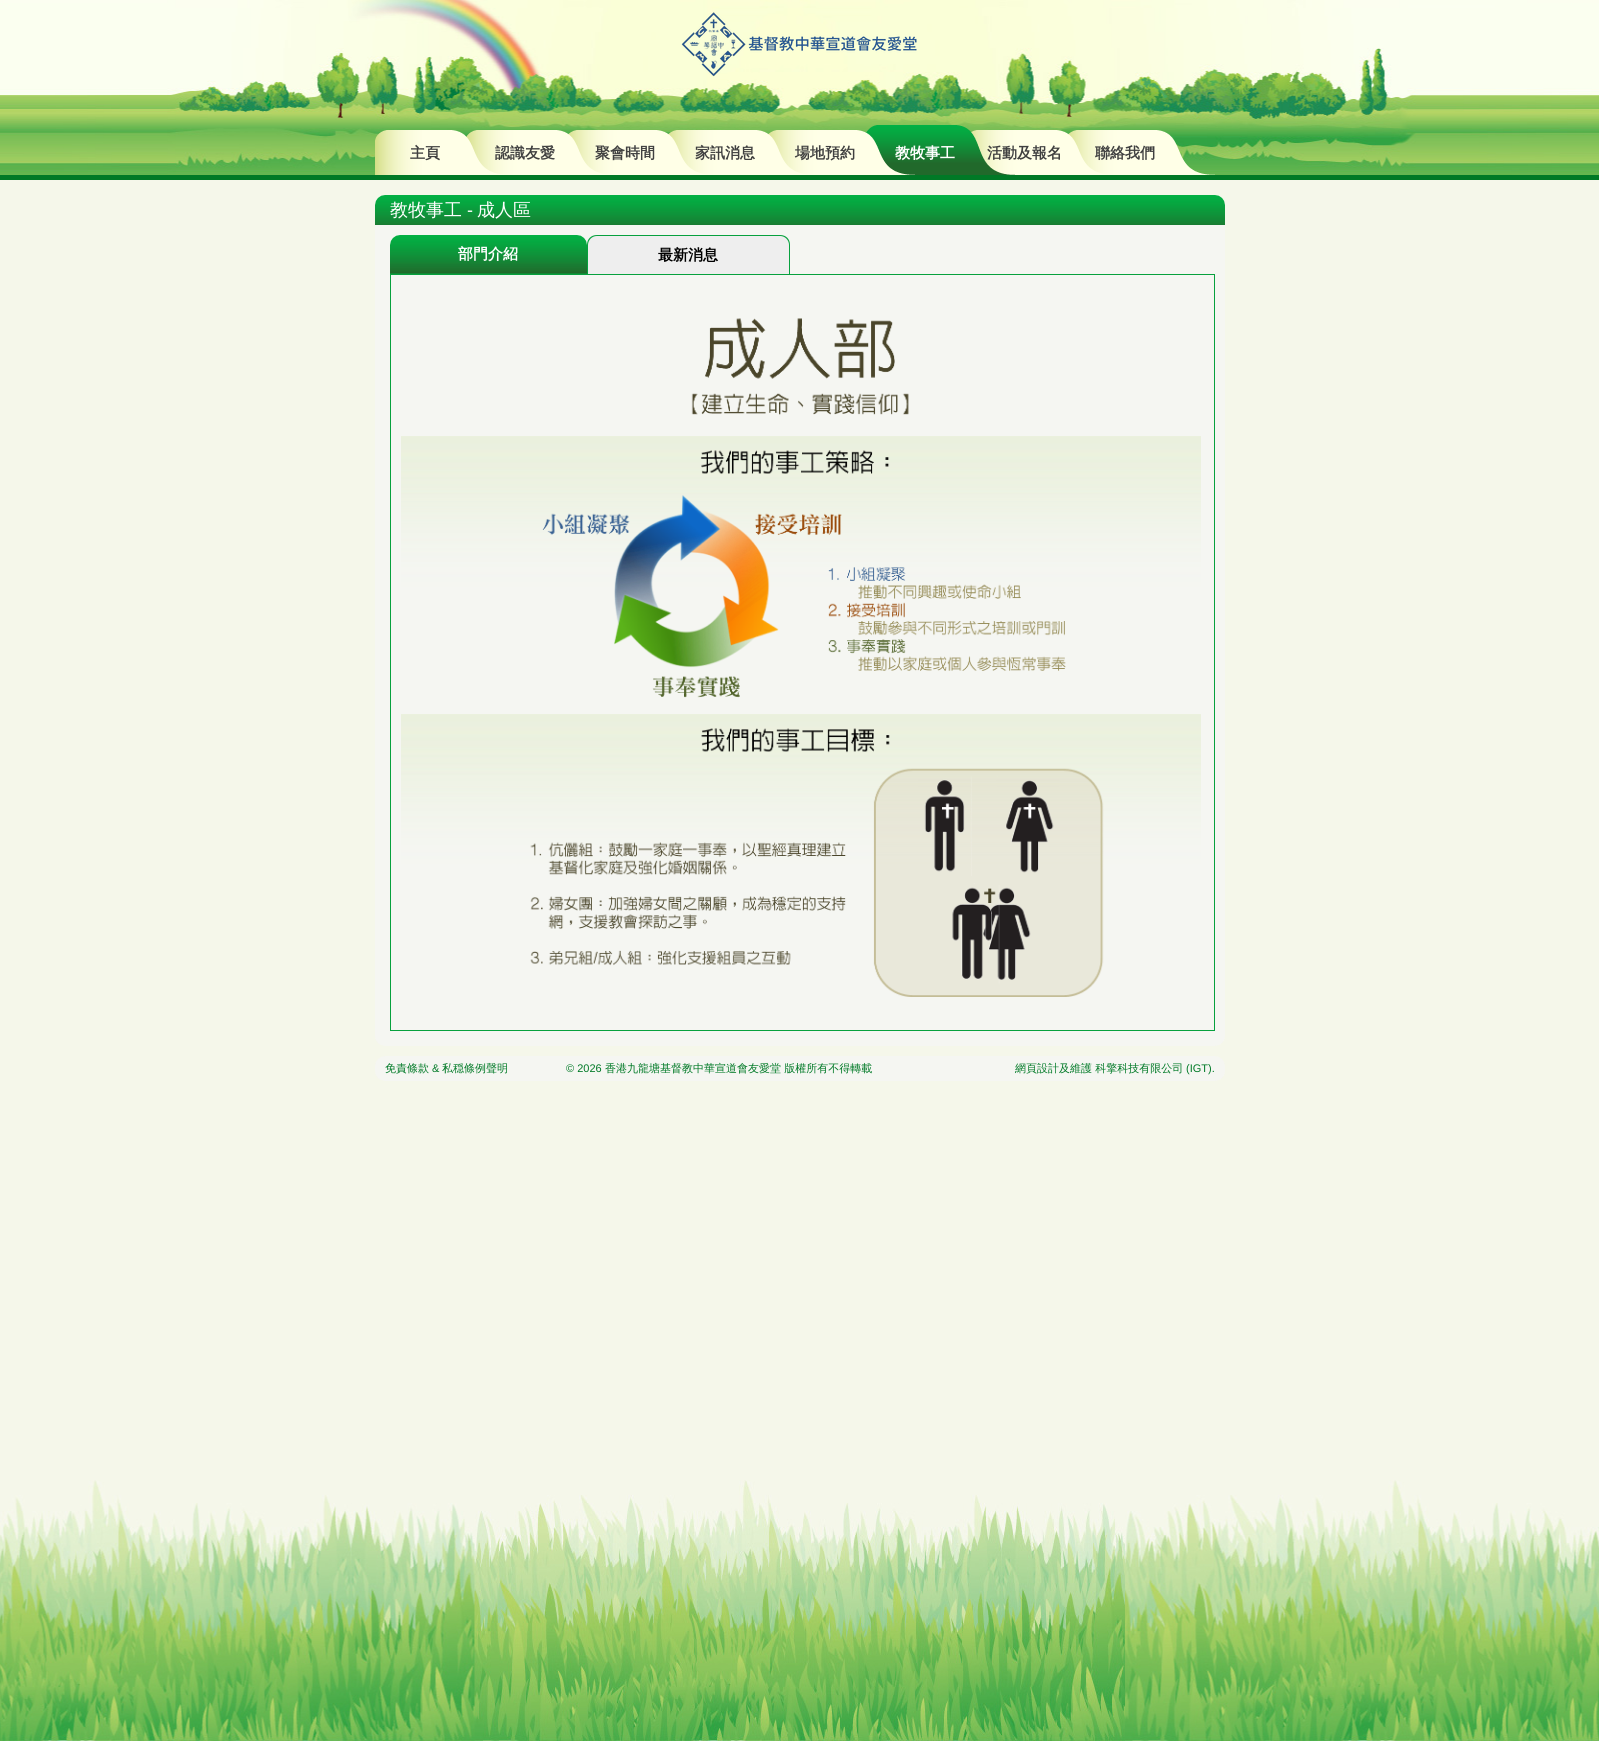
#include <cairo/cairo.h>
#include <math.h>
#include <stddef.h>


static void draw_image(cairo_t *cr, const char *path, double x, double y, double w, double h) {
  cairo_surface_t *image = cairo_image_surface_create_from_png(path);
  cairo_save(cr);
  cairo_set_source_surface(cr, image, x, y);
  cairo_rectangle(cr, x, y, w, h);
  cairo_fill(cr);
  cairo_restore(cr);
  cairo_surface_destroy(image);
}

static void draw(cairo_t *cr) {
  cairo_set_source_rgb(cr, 245 / 255.0, 247 / 255.0, 234 / 255.0);
  cairo_paint(cr);
  draw_image(cr, "images/1.png", 0, 0, 1599, 175);
  cairo_set_source_rgb(cr, 0, 121 / 255.0, 38 / 255.0);
  cairo_rectangle(cr, 0, 175, 1599, 5);
  cairo_fill(cr);
  draw_image(cr, "images/2.png", 681, 12, 236, 65);
  draw_image(cr, "images/3.png", 375, 125, 840, 50);
  draw_image(cr, "images/4.png", 375, 195, 850, 851);
  draw_image(cr, "images/5.png", 375, 195, 850, 30);
  draw_image(cr, "images/6.png", 390, 235, 197, 38);
  cairo_set_source_rgb(cr, 19 / 255.0, 134 / 255.0, 53 / 255.0);
  cairo_rectangle(cr, 390, 273, 197, 1);
  cairo_fill(cr);
  cairo_set_source_rgb(cr, 238 / 255.0, 238 / 255.0, 238 / 255.0);
  cairo_new_path(cr);
  cairo_move_to(cr, 597, 236);
  cairo_line_to(cr, 780, 236);
  cairo_curve_to(cr, 785, 236, 789, 240, 789, 245);
  cairo_line_to(cr, 789, 274);
  cairo_line_to(cr, 588, 274);
  cairo_line_to(cr, 588, 245);
  cairo_curve_to(cr, 588, 240, 592, 236, 597, 236);
  cairo_close_path(cr);
  cairo_fill(cr);
  cairo_set_source_rgb(cr, 7 / 255.0, 161 / 255.0, 62 / 255.0);
  cairo_set_fill_rule(cr, CAIRO_FILL_RULE_EVEN_ODD);
  cairo_new_path(cr);
  cairo_move_to(cr, 597, 235);
  cairo_line_to(cr, 780, 235);
  cairo_curve_to(cr, 786, 235, 790, 239, 790, 245);
  cairo_line_to(cr, 790, 274);
  cairo_line_to(cr, 587, 274);
  cairo_line_to(cr, 587, 245);
  cairo_curve_to(cr, 587, 239, 591, 235, 597, 235);
  cairo_close_path(cr);
  cairo_move_to(cr, 597, 236);
  cairo_line_to(cr, 780, 236);
  cairo_curve_to(cr, 785, 236, 789, 240, 789, 245);
  cairo_line_to(cr, 789, 274);
  cairo_line_to(cr, 588, 274);
  cairo_line_to(cr, 588, 245);
  cairo_curve_to(cr, 588, 240, 592, 236, 597, 236);
  cairo_close_path(cr);
  cairo_fill(cr);
  cairo_rectangle(cr, 390.5, 274.5, 824, 756);
  cairo_set_line_width(cr, 1);
  cairo_stroke(cr);
  draw_image(cr, "images/7.png", 691, 318, 218, 97);
  draw_image(cr, "images/8.png", 401, 436, 800, 262);
  draw_image(cr, "images/9.png", 401, 714, 800, 283);
  draw_image(cr, "images/10.png", 375, 1056, 850, 25);
  draw_image(cr, "images/11.png", 0, 1480, 1599, 261);
  draw_image(cr, "images/12.png", 475, 1481, 650, 260);
  cairo_select_font_face(cr, "WenQuanYi Zen Hei", CAIRO_FONT_SLANT_NORMAL, CAIRO_FONT_WEIGHT_BOLD);
  cairo_set_font_size(cr, 15);
  cairo_set_source_rgb(cr, 64 / 255.0, 64 / 255.0, 64 / 255.0);
  cairo_move_to(cr, 410, 158);
  cairo_show_text(cr, "主頁");
  cairo_move_to(cr, 495, 158);
  cairo_show_text(cr, "認識友愛");
  cairo_move_to(cr, 595, 158);
  cairo_show_text(cr, "聚會時間");
  cairo_move_to(cr, 695, 158);
  cairo_show_text(cr, "家訊消息");
  cairo_move_to(cr, 795, 158);
  cairo_show_text(cr, "場地預約");
  cairo_set_source_rgb(cr, 1, 1, 1);
  cairo_move_to(cr, 895, 158);
  cairo_show_text(cr, "教牧事工");
  cairo_set_source_rgb(cr, 64 / 255.0, 64 / 255.0, 64 / 255.0);
  cairo_move_to(cr, 987, 158);
  cairo_show_text(cr, "活動及報名");
  cairo_move_to(cr, 1095, 158);
  cairo_show_text(cr, "聯絡我們");
  cairo_select_font_face(cr, "WenQuanYi Zen Hei Medium", CAIRO_FONT_SLANT_NORMAL, CAIRO_FONT_WEIGHT_NORMAL);
  cairo_set_font_size(cr, 18);
  cairo_set_source_rgb(cr, 1, 1, 1);
  cairo_move_to(cr, 390, 216);
  cairo_show_text(cr, "教牧事工");
  cairo_select_font_face(cr, "Liberation Sans", CAIRO_FONT_SLANT_NORMAL, CAIRO_FONT_WEIGHT_NORMAL);
  cairo_move_to(cr, 467, 216);
  cairo_show_text(cr, "-");
  cairo_select_font_face(cr, "WenQuanYi Zen Hei Medium", CAIRO_FONT_SLANT_NORMAL, CAIRO_FONT_WEIGHT_NORMAL);
  cairo_move_to(cr, 477, 216);
  cairo_show_text(cr, "成人區");
  cairo_select_font_face(cr, "WenQuanYi Zen Hei", CAIRO_FONT_SLANT_NORMAL, CAIRO_FONT_WEIGHT_BOLD);
  cairo_set_font_size(cr, 15);
  cairo_move_to(cr, 458, 259);
  cairo_show_text(cr, "部門介紹");
  cairo_set_source_rgb(cr, 0, 0, 0);
  cairo_move_to(cr, 658, 260);
  cairo_show_text(cr, "最新消息");
  cairo_select_font_face(cr, "WenQuanYi Zen Hei Medium", CAIRO_FONT_SLANT_NORMAL, CAIRO_FONT_WEIGHT_NORMAL);
  cairo_set_font_size(cr, 11);
  cairo_set_source_rgb(cr, 0, 121 / 255.0, 38 / 255.0);
  cairo_move_to(cr, 385, 1072);
  cairo_show_text(cr, "免責條款");
  cairo_select_font_face(cr, "Liberation Sans", CAIRO_FONT_SLANT_NORMAL, CAIRO_FONT_WEIGHT_NORMAL);
  cairo_move_to(cr, 432, 1072);
  cairo_show_text(cr, "&");
  cairo_select_font_face(cr, "WenQuanYi Zen Hei Medium", CAIRO_FONT_SLANT_NORMAL, CAIRO_FONT_WEIGHT_NORMAL);
  cairo_move_to(cr, 442, 1072);
  cairo_show_text(cr, "私穏條例聲明");
  cairo_select_font_face(cr, "Liberation Sans", CAIRO_FONT_SLANT_NORMAL, CAIRO_FONT_WEIGHT_NORMAL);
  cairo_move_to(cr, 566, 1072);
  cairo_show_text(cr, "© 2026");
  cairo_select_font_face(cr, "WenQuanYi Zen Hei Medium", CAIRO_FONT_SLANT_NORMAL, CAIRO_FONT_WEIGHT_NORMAL);
  cairo_move_to(cr, 605, 1072);
  cairo_show_text(cr, "香港九龍塘基督教中華宣道會友愛堂 版權所有不得轉載");
  cairo_move_to(cr, 1015, 1072);
  cairo_show_text(cr, "網頁設計及維護 科擎科技有限公司");
  cairo_select_font_face(cr, "Liberation Sans", CAIRO_FONT_SLANT_NORMAL, CAIRO_FONT_WEIGHT_NORMAL);
  cairo_move_to(cr, 1186, 1072);
  cairo_show_text(cr, "(IGT).");
}

int main(void) {
  cairo_surface_t *surface = cairo_image_surface_create(CAIRO_FORMAT_RGB24, 1599, 1741);
  cairo_t *cr = cairo_create(surface);
  cairo_font_options_t *options = cairo_font_options_create();
  cairo_font_options_set_hint_metrics(options, CAIRO_HINT_METRICS_OFF);
  cairo_font_options_set_hint_style(options, CAIRO_HINT_STYLE_NONE);
  cairo_set_font_options(cr, options);
  cairo_set_miter_limit(cr, 4);
  draw(cr);
  cairo_surface_write_to_png(surface, "out.png");
  cairo_font_options_destroy(options);
  cairo_destroy(cr);
  cairo_surface_destroy(surface);
  return 0;
}
